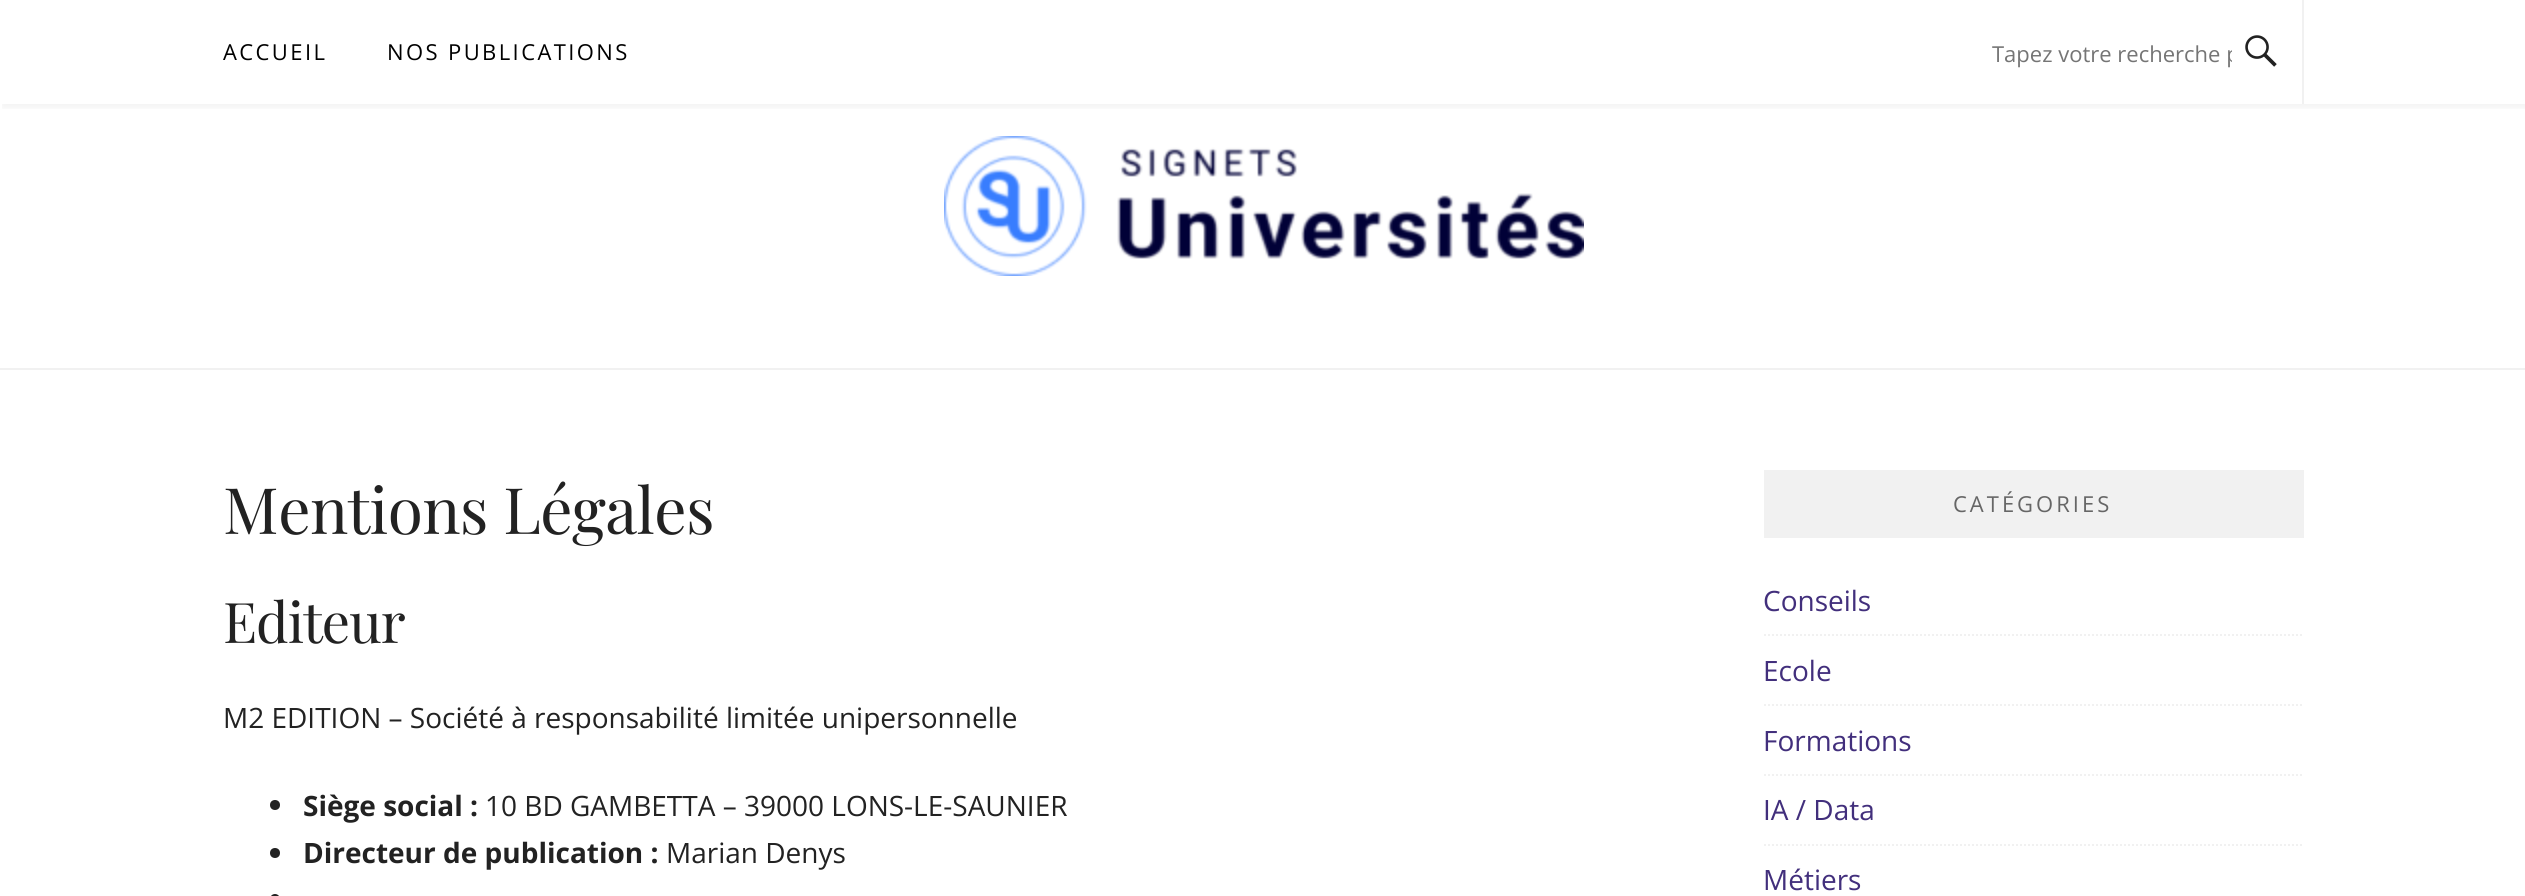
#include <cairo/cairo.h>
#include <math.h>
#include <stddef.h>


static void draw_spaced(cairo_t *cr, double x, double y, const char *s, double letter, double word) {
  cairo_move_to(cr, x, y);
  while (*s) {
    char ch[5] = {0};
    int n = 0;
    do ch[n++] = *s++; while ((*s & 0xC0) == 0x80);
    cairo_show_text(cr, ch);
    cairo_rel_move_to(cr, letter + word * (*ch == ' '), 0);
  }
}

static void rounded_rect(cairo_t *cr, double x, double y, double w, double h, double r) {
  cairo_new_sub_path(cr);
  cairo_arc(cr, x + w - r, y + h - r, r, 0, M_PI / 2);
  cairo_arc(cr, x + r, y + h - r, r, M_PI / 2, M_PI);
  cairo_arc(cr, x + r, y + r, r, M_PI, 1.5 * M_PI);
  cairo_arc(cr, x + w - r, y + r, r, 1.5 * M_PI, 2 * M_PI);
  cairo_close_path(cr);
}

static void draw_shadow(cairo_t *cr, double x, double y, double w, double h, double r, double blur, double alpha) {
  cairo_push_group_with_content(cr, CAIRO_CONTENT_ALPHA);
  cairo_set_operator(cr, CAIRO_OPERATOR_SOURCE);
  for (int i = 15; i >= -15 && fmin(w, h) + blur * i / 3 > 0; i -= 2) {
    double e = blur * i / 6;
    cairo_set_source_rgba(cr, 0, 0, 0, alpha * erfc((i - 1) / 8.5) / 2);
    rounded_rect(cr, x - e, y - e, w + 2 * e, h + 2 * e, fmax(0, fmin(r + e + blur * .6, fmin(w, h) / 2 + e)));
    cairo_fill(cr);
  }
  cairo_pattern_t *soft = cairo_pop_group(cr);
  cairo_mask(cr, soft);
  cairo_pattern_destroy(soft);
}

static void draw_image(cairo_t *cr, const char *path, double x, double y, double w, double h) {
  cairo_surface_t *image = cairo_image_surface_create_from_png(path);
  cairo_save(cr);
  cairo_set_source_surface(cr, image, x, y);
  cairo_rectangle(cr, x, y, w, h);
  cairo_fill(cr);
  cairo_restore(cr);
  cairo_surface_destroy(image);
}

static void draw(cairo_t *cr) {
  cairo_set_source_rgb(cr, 1, 1, 1);
  cairo_paint(cr);
  cairo_save(cr);
  cairo_rectangle(cr, 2, 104, 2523, 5);
  cairo_clip(cr);
  cairo_set_source_rgb(cr, 0, 0, 0);
  draw_shadow(cr, 2, 4, 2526, 104, 0, 4, 0.05);
  cairo_restore(cr);
  cairo_set_source_rgb(cr, 241 / 255.0, 241 / 255.0, 241 / 255.0);
  cairo_rectangle(cr, 2302, 0, 2, 104);
  cairo_fill(cr);
  draw_image(cr, "images/1.png", 2245, 35, 32, 32);
  draw_image(cr, "images/2.png", 944, 136, 640, 140);
  cairo_rectangle(cr, 0, 368, 2525, 2);
  cairo_fill(cr);
  cairo_set_source_rgb(cr, 34 / 255.0, 34 / 255.0, 34 / 255.0);
  cairo_arc(cr, 275, 805, 5, 0, 2 * M_PI);
  cairo_fill(cr);
  cairo_arc(cr, 275, 853, 5, 0, 2 * M_PI);
  cairo_fill(cr);
  rounded_rect(cr, 270, 894, 10, 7, 5);
  cairo_fill(cr);
  cairo_set_source_rgb(cr, 241 / 255.0, 241 / 255.0, 241 / 255.0);
  cairo_rectangle(cr, 1764, 470, 540, 68);
  cairo_fill(cr);
  cairo_new_path(cr);
  cairo_move_to(cr, 1764, 635);
  cairo_line_to(cr, 2304, 635);
  cairo_set_dash(cr, (double[]){2, 2}, 2, 0);
  cairo_stroke(cr);
  cairo_new_path(cr);
  cairo_move_to(cr, 1764, 705);
  cairo_line_to(cr, 2304, 705);
  cairo_stroke(cr);
  cairo_new_path(cr);
  cairo_move_to(cr, 1764, 775);
  cairo_line_to(cr, 2304, 775);
  cairo_stroke(cr);
  cairo_new_path(cr);
  cairo_move_to(cr, 1764, 845);
  cairo_line_to(cr, 2304, 845);
  cairo_stroke(cr);
  cairo_select_font_face(cr, "Open Sans", CAIRO_FONT_SLANT_NORMAL, CAIRO_FONT_WEIGHT_NORMAL);
  cairo_set_font_size(cr, 22);
  cairo_set_source_rgb(cr, 0, 0, 0);
  draw_spaced(cr, 223, 60, "ACCUEIL", 2.4, 0);
  draw_spaced(cr, 387, 60, "NOS PUBLICATIONS", 2.4, 0);
  cairo_save(cr);
  cairo_rectangle(cr, 1992, 38, 240, 30);
  cairo_clip(cr);
  cairo_set_source_rgb(cr, 117 / 255.0, 117 / 255.0, 117 / 255.0);
  cairo_move_to(cr, 1992, 62);
  cairo_show_text(cr, "Tapez votre recherche p");
  cairo_restore(cr);
  cairo_select_font_face(cr, "Playfair Display", CAIRO_FONT_SLANT_NORMAL, CAIRO_FONT_WEIGHT_NORMAL);
  cairo_set_font_size(cr, 64);
  cairo_set_source_rgb(cr, 34 / 255.0, 34 / 255.0, 34 / 255.0);
  draw_spaced(cr, 223, 534, "Mentions Légales", -0.6, 0);
  cairo_set_font_size(cr, 56);
  draw_spaced(cr, 223, 643, "Editeur", -1, 0);
  cairo_select_font_face(cr, "Open Sans", CAIRO_FONT_SLANT_NORMAL, CAIRO_FONT_WEIGHT_NORMAL);
  cairo_set_font_size(cr, 28);
  cairo_move_to(cr, 223, 728);
  cairo_show_text(cr, "M2 EDITION – Société à responsabilité limitée unipersonnelle");
  cairo_select_font_face(cr, "Open Sans", CAIRO_FONT_SLANT_NORMAL, CAIRO_FONT_WEIGHT_BOLD);
  cairo_move_to(cr, 303, 816);
  cairo_show_text(cr, "Siège social :");
  cairo_select_font_face(cr, "Open Sans", CAIRO_FONT_SLANT_NORMAL, CAIRO_FONT_WEIGHT_NORMAL);
  cairo_move_to(cr, 485, 816);
  cairo_show_text(cr, "10 BD GAMBETTA – 39000 LONS-LE-SAUNIER");
  cairo_select_font_face(cr, "Open Sans", CAIRO_FONT_SLANT_NORMAL, CAIRO_FONT_WEIGHT_BOLD);
  cairo_move_to(cr, 303, 863);
  cairo_show_text(cr, "Directeur de publication :");
  cairo_select_font_face(cr, "Open Sans", CAIRO_FONT_SLANT_NORMAL, CAIRO_FONT_WEIGHT_NORMAL);
  cairo_move_to(cr, 666, 863);
  cairo_show_text(cr, "Marian Denys");
  cairo_set_font_size(cr, 22);
  cairo_set_source_rgb(cr, 102 / 255.0, 102 / 255.0, 102 / 255.0);
  draw_spaced(cr, 1953, 512, "CATÉGORIES", 3, 0);
  cairo_set_font_size(cr, 28);
  cairo_set_source_rgb(cr, 66 / 255.0, 47 / 255.0, 124 / 255.0);
  cairo_move_to(cr, 1763, 611);
  cairo_show_text(cr, "Conseils");
  cairo_move_to(cr, 1763, 681);
  cairo_show_text(cr, "Ecole");
  cairo_move_to(cr, 1763, 751);
  cairo_show_text(cr, "Formations");
  cairo_move_to(cr, 1763, 820);
  cairo_show_text(cr, "IA / Data");
  cairo_move_to(cr, 1763, 890);
  cairo_show_text(cr, "Métiers");
}

int main(void) {
  cairo_surface_t *surface = cairo_image_surface_create(CAIRO_FORMAT_RGB24, 2525, 896);
  cairo_t *cr = cairo_create(surface);
  cairo_font_options_t *options = cairo_font_options_create();
  cairo_font_options_set_hint_metrics(options, CAIRO_HINT_METRICS_OFF);
  cairo_font_options_set_hint_style(options, CAIRO_HINT_STYLE_NONE);
  cairo_set_font_options(cr, options);
  cairo_set_miter_limit(cr, 4);
  draw(cr);
  cairo_surface_write_to_png(surface, "out.png");
  cairo_font_options_destroy(options);
  cairo_destroy(cr);
  cairo_surface_destroy(surface);
  return 0;
}
